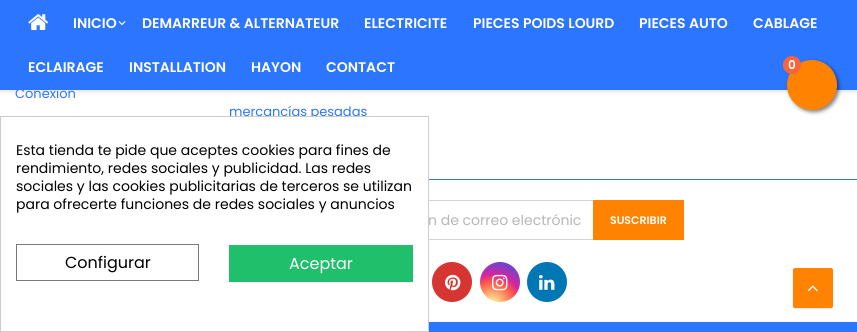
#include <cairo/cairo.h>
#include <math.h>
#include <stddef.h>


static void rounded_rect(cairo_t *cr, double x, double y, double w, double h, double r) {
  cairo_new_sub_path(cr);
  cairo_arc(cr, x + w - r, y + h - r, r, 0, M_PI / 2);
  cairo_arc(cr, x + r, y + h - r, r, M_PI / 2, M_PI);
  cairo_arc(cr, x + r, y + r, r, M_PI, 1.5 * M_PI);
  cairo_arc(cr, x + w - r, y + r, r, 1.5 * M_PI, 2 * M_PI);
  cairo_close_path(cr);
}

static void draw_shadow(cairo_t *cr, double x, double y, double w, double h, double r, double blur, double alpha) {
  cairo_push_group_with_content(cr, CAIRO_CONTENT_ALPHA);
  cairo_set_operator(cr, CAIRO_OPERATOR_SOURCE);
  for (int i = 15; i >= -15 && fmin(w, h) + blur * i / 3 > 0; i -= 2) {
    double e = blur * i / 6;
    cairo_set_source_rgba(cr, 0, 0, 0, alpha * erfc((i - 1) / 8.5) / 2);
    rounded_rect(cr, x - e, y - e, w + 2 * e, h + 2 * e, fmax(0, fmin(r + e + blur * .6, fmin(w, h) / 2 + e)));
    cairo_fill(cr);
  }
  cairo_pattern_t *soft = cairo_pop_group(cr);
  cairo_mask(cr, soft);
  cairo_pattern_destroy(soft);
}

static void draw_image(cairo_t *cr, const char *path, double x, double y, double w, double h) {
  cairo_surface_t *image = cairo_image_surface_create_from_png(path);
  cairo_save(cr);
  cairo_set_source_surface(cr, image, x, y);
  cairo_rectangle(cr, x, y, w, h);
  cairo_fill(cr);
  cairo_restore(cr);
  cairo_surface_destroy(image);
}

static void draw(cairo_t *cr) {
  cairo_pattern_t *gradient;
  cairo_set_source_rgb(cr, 1, 1, 1);
  cairo_paint(cr);
  cairo_set_source_rgb(cr, 0, 0, 0);
  draw_shadow(cr, 0, 2, 857, 90, 0, 2, 0.1);
  cairo_set_source_rgb(cr, 44 / 255.0, 117 / 255.0, 1);
  cairo_rectangle(cr, 0, 0, 857, 90);
  cairo_fill(cr);
  draw_image(cr, "images/1.png", 28, 14, 21, 16);
  draw_image(cr, "images/2.png", 118, 21, 8, 5);
  cairo_set_source_rgb(cr, 0, 0, 0);
  draw_shadow(cr, 789, 62, 50, 50, 25, 2, 0.5);
  cairo_set_source_rgb(cr, 1, 131 / 255.0, 0);
  cairo_arc(cr, 812, 85, 25, 0, 2 * M_PI);
  cairo_fill(cr);
  cairo_set_source_rgb(cr, 248 / 255.0, 101 / 255.0, 61 / 255.0);
  cairo_arc(cr, 792, 65, 9, 0, 2 * M_PI);
  cairo_fill(cr);
  cairo_set_source_rgb(cr, 0, 0, 0);
  draw_shadow(cr, 793, 269, 40, 40, 2, 0.5, 0.1);
  cairo_set_source_rgb(cr, 1, 131 / 255.0, 0);
  rounded_rect(cr, 793, 268, 40, 40, 2);
  cairo_fill(cr);
  draw_image(cr, "images/3.png", 807, 285, 11, 7);
  cairo_set_source_rgb(cr, 44 / 255.0, 117 / 255.0, 1);
  cairo_rectangle(cr, 429, 179, 428, 1);
  cairo_fill(cr);
  cairo_set_source_rgb(cr, 1, 131 / 255.0, 0);
  cairo_rectangle(cr, 593, 200, 91, 40);
  cairo_fill(cr);
  cairo_save(cr);
  cairo_rectangle(cr, 340, 200, 253, 40);
  cairo_clip(cr);
  cairo_rectangle(cr, 340.5, 200.5, 254, 39);
  cairo_set_source_rgb(cr, 214 / 255.0, 212 / 255.0, 212 / 255.0);
  cairo_set_line_width(cr, 1);
  cairo_stroke(cr);
  cairo_restore(cr);
  cairo_set_source_rgb(cr, 215 / 255.0, 53 / 255.0, 50 / 255.0);
  cairo_arc(cr, 452, 282, 20, 0, 2 * M_PI);
  cairo_fill(cr);
  draw_image(cr, "images/4.png", 445, 274, 16, 17);
  gradient = cairo_pattern_create_radial(492, 305, 0, 492, 305, 51);
  cairo_pattern_add_color_stop_rgba(gradient, 0, 253 / 255.0, 244 / 255.0, 151 / 255.0, 1);
  cairo_pattern_add_color_stop_rgba(gradient, 0.05, 253 / 255.0, 244 / 255.0, 151 / 255.0, 1);
  cairo_pattern_add_color_stop_rgba(gradient, 0.45, 253 / 255.0, 89 / 255.0, 73 / 255.0, 1);
  cairo_pattern_add_color_stop_rgba(gradient, 0.6, 214 / 255.0, 36 / 255.0, 159 / 255.0, 1);
  cairo_pattern_add_color_stop_rgba(gradient, 1, 40 / 255.0, 90 / 255.0, 235 / 255.0, 1);
  cairo_set_source(cr, gradient);
  cairo_pattern_destroy(gradient);
  cairo_arc(cr, 500, 282, 20, 0, 2 * M_PI);
  cairo_fill(cr);
  draw_image(cr, "images/5.png", 492, 274, 16, 17);
  cairo_set_source_rgb(cr, 0, 119 / 255.0, 181 / 255.0);
  cairo_arc(cr, 547, 282, 20, 0, 2 * M_PI);
  cairo_fill(cr);
  draw_image(cr, "images/6.png", 539, 275, 16, 15);
  cairo_set_source_rgb(cr, 44 / 255.0, 117 / 255.0, 1);
  cairo_rectangle(cr, 429, 322, 428, 10);
  cairo_fill(cr);
  cairo_select_font_face(cr, "Poppins SemiBold", CAIRO_FONT_SLANT_NORMAL, CAIRO_FONT_WEIGHT_NORMAL);
  cairo_set_font_size(cr, 14);
  cairo_set_source_rgb(cr, 1, 1, 1);
  cairo_move_to(cr, 73, 28);
  cairo_show_text(cr, "INICIO");
  cairo_move_to(cr, 142, 28);
  cairo_show_text(cr, "DEMARREUR & ALTERNATEUR");
  cairo_move_to(cr, 364, 28);
  cairo_show_text(cr, "ELECTRICITE");
  cairo_move_to(cr, 473, 28);
  cairo_show_text(cr, "PIECES POIDS LOURD");
  cairo_move_to(cr, 639, 28);
  cairo_show_text(cr, "PIECES AUTO");
  cairo_move_to(cr, 753, 28);
  cairo_show_text(cr, "CABLAGE");
  cairo_move_to(cr, 28, 72);
  cairo_show_text(cr, "ECLAIRAGE");
  cairo_move_to(cr, 129, 72);
  cairo_show_text(cr, "INSTALLATION");
  cairo_move_to(cr, 251, 72);
  cairo_show_text(cr, "HAYON");
  cairo_move_to(cr, 326, 72);
  cairo_show_text(cr, "CONTACT");
  cairo_set_font_size(cr, 12);
  cairo_move_to(cr, 788, 69);
  cairo_show_text(cr, "0");
  cairo_select_font_face(cr, "Poppins", CAIRO_FONT_SLANT_NORMAL, CAIRO_FONT_WEIGHT_NORMAL);
  cairo_set_font_size(cr, 13);
  cairo_set_source_rgb(cr, 44 / 255.0, 117 / 255.0, 1);
  cairo_move_to(cr, 15, 98);
  cairo_show_text(cr, "Conexión");
  cairo_move_to(cr, 229, 116);
  cairo_show_text(cr, "mercancías pesadas");
  cairo_set_font_size(cr, 14);
  cairo_set_source_rgb(cr, 183 / 255.0, 183 / 255.0, 183 / 255.0);
  cairo_move_to(cr, 428, 225);
  cairo_show_text(cr, "n de correo electrónic");
  cairo_select_font_face(cr, "Poppins SemiBold", CAIRO_FONT_SLANT_NORMAL, CAIRO_FONT_WEIGHT_NORMAL);
  cairo_set_font_size(cr, 11);
  cairo_set_source_rgb(cr, 1, 1, 1);
  cairo_move_to(cr, 610, 224);
  cairo_show_text(cr, "SUSCRIBIR");
  cairo_rectangle(cr, 311, 117, 117, 123);
  cairo_fill(cr);
  cairo_rectangle(cr, 0.5, 116.5, 428, 215);
  cairo_set_source_rgb(cr, 204 / 255.0, 204 / 255.0, 204 / 255.0);
  cairo_set_line_width(cr, 1);
  cairo_stroke(cr);
  cairo_select_font_face(cr, "Poppins", CAIRO_FONT_SLANT_NORMAL, CAIRO_FONT_WEIGHT_NORMAL);
  cairo_set_font_size(cr, 14);
  cairo_set_source_rgb(cr, 0, 0, 0);
  cairo_move_to(cr, 16, 155);
  cairo_show_text(cr, "Esta tienda te pide que aceptes cookies para fines de");
  cairo_move_to(cr, 16, 173);
  cairo_show_text(cr, "rendimiento, redes sociales y publicidad. Las redes");
  cairo_move_to(cr, 16, 191);
  cairo_show_text(cr, "sociales y las cookies publicitarias de terceros se utilizan");
  cairo_move_to(cr, 16, 209);
  cairo_show_text(cr, "para ofrecerte funciones de redes sociales y anuncios");
  cairo_rectangle(cr, 16.5, 244.5, 182, 36);
  cairo_set_source_rgb(cr, 122 / 255.0, 122 / 255.0, 122 / 255.0);
  cairo_stroke(cr);
  cairo_set_font_size(cr, 16);
  cairo_set_source_rgb(cr, 0, 0, 0);
  cairo_move_to(cr, 65, 268);
  cairo_show_text(cr, "Configurar");
  cairo_set_source_rgb(cr, 32 / 255.0, 191 / 255.0, 107 / 255.0);
  cairo_rectangle(cr, 229, 245, 184, 37);
  cairo_fill(cr);
  cairo_set_source_rgb(cr, 1, 1, 1);
  cairo_move_to(cr, 289, 269);
  cairo_show_text(cr, "Aceptar");
}

int main(void) {
  cairo_surface_t *surface = cairo_image_surface_create(CAIRO_FORMAT_RGB24, 857, 332);
  cairo_t *cr = cairo_create(surface);
  cairo_font_options_t *options = cairo_font_options_create();
  cairo_font_options_set_hint_metrics(options, CAIRO_HINT_METRICS_OFF);
  cairo_font_options_set_hint_style(options, CAIRO_HINT_STYLE_NONE);
  cairo_set_font_options(cr, options);
  cairo_set_miter_limit(cr, 4);
  draw(cr);
  cairo_surface_write_to_png(surface, "out.png");
  cairo_font_options_destroy(options);
  cairo_destroy(cr);
  cairo_surface_destroy(surface);
  return 0;
}
